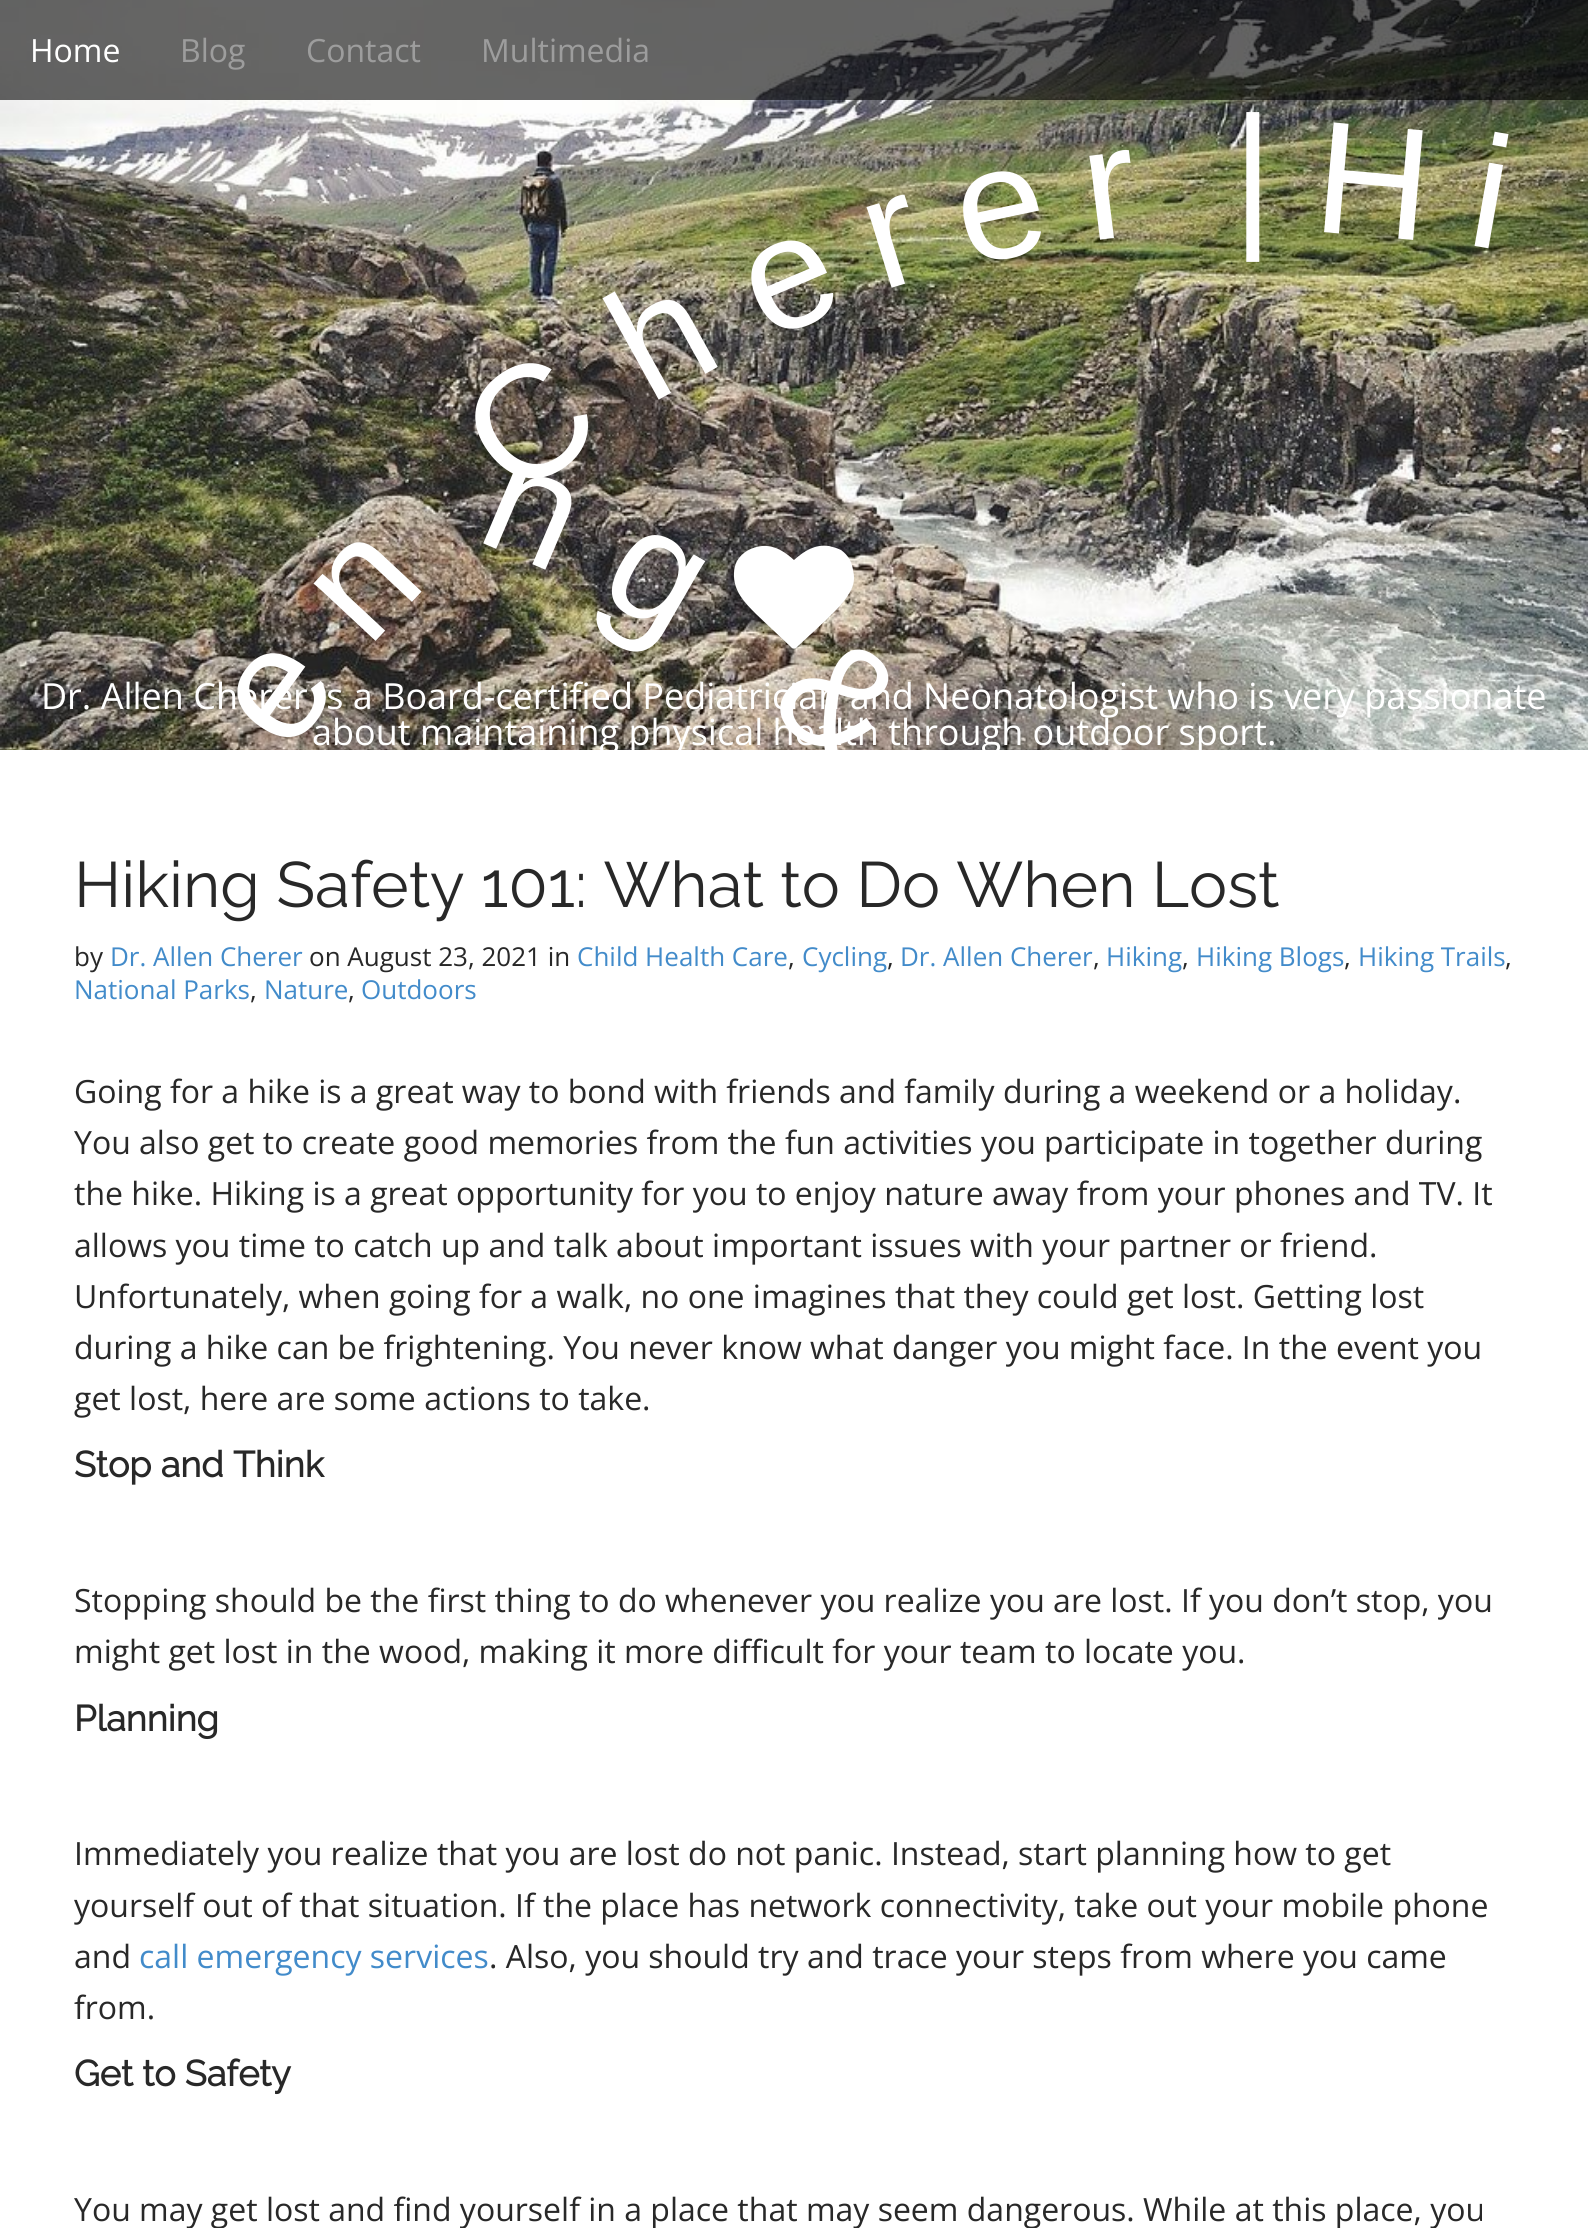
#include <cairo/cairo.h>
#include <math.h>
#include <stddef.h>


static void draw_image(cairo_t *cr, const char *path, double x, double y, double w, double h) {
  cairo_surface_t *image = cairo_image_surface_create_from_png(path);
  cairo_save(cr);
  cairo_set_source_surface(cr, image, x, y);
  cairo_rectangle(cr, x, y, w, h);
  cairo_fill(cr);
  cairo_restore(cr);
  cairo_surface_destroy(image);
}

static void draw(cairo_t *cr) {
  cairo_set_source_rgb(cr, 1, 1, 1);
  cairo_paint(cr);
  draw_image(cr, "images/1.png", 0, 0, 1588, 750);
  cairo_set_source_rgba(cr, 0, 0, 0, 0.6);
  cairo_rectangle(cr, 0, 0, 1588, 100);
  cairo_fill(cr);
  cairo_set_source_rgb(cr, 1, 1, 1);
  cairo_new_path(cr);
  cairo_move_to(cr, 797, 647);
  cairo_curve_to(cr, 796, 649, 793, 649, 792, 648);
  cairo_line_to(cr, 756, 614);
  cairo_curve_to(cr, 745, 603, 733, 591, 734, 573);
  cairo_curve_to(cr, 734, 569, 735, 565, 737, 561);
  cairo_curve_to(cr, 742, 552, 752, 547, 762, 546);
  cairo_curve_to(cr, 775, 545, 785, 552, 794, 560);
  cairo_curve_to(cr, 804, 551, 815, 544, 829, 546);
  cairo_curve_to(cr, 833, 547, 837, 548, 841, 550);
  cairo_curve_to(cr, 848, 555, 852, 562, 853, 570);
  cairo_curve_to(cr, 855, 578, 854, 585, 850, 592);
  cairo_curve_to(cr, 844, 603, 834, 612, 825, 621);
  cairo_close_path(cr);
  cairo_fill(cr);
  cairo_select_font_face(cr, "Open Sans", CAIRO_FONT_SLANT_NORMAL, CAIRO_FONT_WEIGHT_NORMAL);
  cairo_set_font_size(cr, 32);
  cairo_move_to(cr, 30, 62);
  cairo_show_text(cr, "Home");
  cairo_set_source_rgb(cr, 157 / 255.0, 157 / 255.0, 157 / 255.0);
  cairo_move_to(cr, 180, 62);
  cairo_show_text(cr, "Blog");
  cairo_move_to(cr, 306, 62);
  cairo_show_text(cr, "Contact");
  cairo_move_to(cr, 481, 62);
  cairo_show_text(cr, "Multimedia");
  cairo_select_font_face(cr, "Liberation Sans", CAIRO_FONT_SLANT_NORMAL, CAIRO_FONT_WEIGHT_NORMAL);
  cairo_set_font_size(cr, 160);
  cairo_set_source_rgb(cr, 1, 1, 1);
  cairo_save(cr);
  cairo_translate(cr, 649, 405);
  cairo_rotate(cr, -29 * M_PI / 180);
  cairo_move_to(cr, 0, 0);
  cairo_show_text(cr, "h");
  cairo_restore(cr);
  cairo_save(cr);
  cairo_translate(cr, 767, 341);
  cairo_rotate(cr, -23 * M_PI / 180);
  cairo_move_to(cr, 0, 0);
  cairo_show_text(cr, "e");
  cairo_restore(cr);
  cairo_save(cr);
  cairo_translate(cr, 881, 291);
  cairo_rotate(cr, -17 * M_PI / 180);
  cairo_move_to(cr, 0, 0);
  cairo_show_text(cr, "r");
  cairo_restore(cr);
  cairo_save(cr);
  cairo_translate(cr, 967, 266);
  cairo_rotate(cr, -12 * M_PI / 180);
  cairo_move_to(cr, 0, 0);
  cairo_show_text(cr, "e");
  cairo_restore(cr);
  cairo_save(cr);
  cairo_translate(cr, 1089, 241);
  cairo_rotate(cr, -7 * M_PI / 180);
  cairo_move_to(cr, 0, 0);
  cairo_show_text(cr, "r");
  cairo_restore(cr);
  cairo_move_to(cr, 1232, 228);
  cairo_show_text(cr, "|");
  cairo_save(cr);
  cairo_translate(cr, 1311, 231);
  cairo_rotate(cr, 5 * M_PI / 180);
  cairo_move_to(cr, 0, 0);
  cairo_show_text(cr, "H");
  cairo_restore(cr);
  cairo_save(cr);
  cairo_translate(cr, 1464, 244);
  cairo_rotate(cr, 10 * M_PI / 180);
  cairo_move_to(cr, 0, 0);
  cairo_show_text(cr, "i");
  cairo_restore(cr);
  cairo_save(cr);
  cairo_translate(cr, 516, 502);
  cairo_rotate(cr, -37 * M_PI / 180);
  cairo_move_to(cr, 0, 0);
  cairo_show_text(cr, "C");
  cairo_restore(cr);
  cairo_save(cr);
  cairo_translate(cr, 473, 539);
  cairo_rotate(cr, 23 * M_PI / 180);
  cairo_move_to(cr, 0, 0);
  cairo_show_text(cr, "n");
  cairo_restore(cr);
  cairo_save(cr);
  cairo_translate(cr, 368, 649);
  cairo_rotate(cr, -47 * M_PI / 180);
  cairo_move_to(cr, 0, 0);
  cairo_show_text(cr, "n");
  cairo_restore(cr);
  cairo_save(cr);
  cairo_translate(cr, 595, 595);
  cairo_rotate(cr, 30 * M_PI / 180);
  cairo_move_to(cr, 0, 0);
  cairo_show_text(cr, "g");
  cairo_restore(cr);
  cairo_save(cr);
  cairo_translate(cr, 289, 756);
  cairo_rotate(cr, -54 * M_PI / 180);
  cairo_move_to(cr, 0, 0);
  cairo_show_text(cr, "e");
  cairo_restore(cr);
  cairo_save(cr);
  cairo_rectangle(cr, 0, 0, 1588, 750);
  cairo_clip(cr);
  cairo_save(cr);
  cairo_translate(cr, 765, 708);
  cairo_rotate(cr, 40 * M_PI / 180);
  cairo_move_to(cr, 0, 0);
  cairo_show_text(cr, "&");
  cairo_restore(cr);
  cairo_restore(cr);
  cairo_select_font_face(cr, "Open Sans", CAIRO_FONT_SLANT_NORMAL, CAIRO_FONT_WEIGHT_NORMAL);
  cairo_set_font_size(cr, 36);
  cairo_move_to(cr, 41, 709);
  cairo_show_text(cr, "Dr. Allen Cherer is a Board-certified Pediatrician and Neonatologist who is very passionate");
  cairo_save(cr);
  cairo_rectangle(cr, 0, 0, 1588, 750);
  cairo_clip(cr);
  cairo_move_to(cr, 312, 745);
  cairo_show_text(cr, "about maintaining physical health through outdoor sport.");
  cairo_restore(cr);
  cairo_select_font_face(cr, "Raleway Thin", CAIRO_FONT_SLANT_NORMAL, CAIRO_FONT_WEIGHT_NORMAL);
  cairo_set_font_size(cr, 64);
  cairo_set_source_rgb(cr, 40 / 255.0, 40 / 255.0, 40 / 255.0);
  cairo_move_to(cr, 74, 907);
  cairo_show_text(cr, "Hiking Safety 101: What to Do When Lost");
  cairo_select_font_face(cr, "Open Sans", CAIRO_FONT_SLANT_NORMAL, CAIRO_FONT_WEIGHT_NORMAL);
  cairo_set_font_size(cr, 26);
  cairo_move_to(cr, 74, 966);
  cairo_show_text(cr, "by");
  cairo_set_source_rgb(cr, 66 / 255.0, 139 / 255.0, 202 / 255.0);
  cairo_move_to(cr, 110, 966);
  cairo_show_text(cr, "Dr. Allen Cherer");
  cairo_set_source_rgb(cr, 40 / 255.0, 40 / 255.0, 40 / 255.0);
  cairo_move_to(cr, 309, 966);
  cairo_show_text(cr, "on August 23, 2021 in");
  cairo_set_source_rgb(cr, 66 / 255.0, 139 / 255.0, 202 / 255.0);
  cairo_move_to(cr, 577, 966);
  cairo_show_text(cr, "Child Health Care");
  cairo_set_source_rgb(cr, 40 / 255.0, 40 / 255.0, 40 / 255.0);
  cairo_move_to(cr, 788, 966);
  cairo_show_text(cr, ",");
  cairo_set_source_rgb(cr, 66 / 255.0, 139 / 255.0, 202 / 255.0);
  cairo_move_to(cr, 802, 966);
  cairo_show_text(cr, "Cycling");
  cairo_set_source_rgb(cr, 40 / 255.0, 40 / 255.0, 40 / 255.0);
  cairo_move_to(cr, 887, 966);
  cairo_show_text(cr, ",");
  cairo_set_source_rgb(cr, 66 / 255.0, 139 / 255.0, 202 / 255.0);
  cairo_move_to(cr, 900, 966);
  cairo_show_text(cr, "Dr. Allen Cherer");
  cairo_set_source_rgb(cr, 40 / 255.0, 40 / 255.0, 40 / 255.0);
  cairo_move_to(cr, 1093, 966);
  cairo_show_text(cr, ",");
  cairo_set_source_rgb(cr, 66 / 255.0, 139 / 255.0, 202 / 255.0);
  cairo_move_to(cr, 1106, 966);
  cairo_show_text(cr, "Hiking");
  cairo_set_source_rgb(cr, 40 / 255.0, 40 / 255.0, 40 / 255.0);
  cairo_move_to(cr, 1182, 966);
  cairo_show_text(cr, ",");
  cairo_set_source_rgb(cr, 66 / 255.0, 139 / 255.0, 202 / 255.0);
  cairo_move_to(cr, 1196, 966);
  cairo_show_text(cr, "Hiking Blogs");
  cairo_set_source_rgb(cr, 40 / 255.0, 40 / 255.0, 40 / 255.0);
  cairo_move_to(cr, 1344, 966);
  cairo_show_text(cr, ",");
  cairo_set_source_rgb(cr, 66 / 255.0, 139 / 255.0, 202 / 255.0);
  cairo_move_to(cr, 1358, 966);
  cairo_show_text(cr, "Hiking Trails");
  cairo_set_source_rgb(cr, 40 / 255.0, 40 / 255.0, 40 / 255.0);
  cairo_move_to(cr, 1505, 966);
  cairo_show_text(cr, ",");
  cairo_set_source_rgb(cr, 66 / 255.0, 139 / 255.0, 202 / 255.0);
  cairo_move_to(cr, 74, 999);
  cairo_show_text(cr, "National Parks");
  cairo_set_source_rgb(cr, 40 / 255.0, 40 / 255.0, 40 / 255.0);
  cairo_move_to(cr, 250, 999);
  cairo_show_text(cr, ",");
  cairo_set_source_rgb(cr, 66 / 255.0, 139 / 255.0, 202 / 255.0);
  cairo_move_to(cr, 264, 999);
  cairo_show_text(cr, "Nature");
  cairo_set_source_rgb(cr, 40 / 255.0, 40 / 255.0, 40 / 255.0);
  cairo_move_to(cr, 348, 999);
  cairo_show_text(cr, ",");
  cairo_set_source_rgb(cr, 66 / 255.0, 139 / 255.0, 202 / 255.0);
  cairo_move_to(cr, 361, 999);
  cairo_show_text(cr, "Outdoors");
  cairo_set_font_size(cr, 32);
  cairo_set_source_rgb(cr, 40 / 255.0, 40 / 255.0, 40 / 255.0);
  cairo_move_to(cr, 74, 1103);
  cairo_show_text(cr, "Going for a hike is a great way to bond with friends and family during a weekend or a holiday.");
  cairo_move_to(cr, 74, 1154);
  cairo_show_text(cr, "You also get to create good memories from the fun activities you participate in together during");
  cairo_move_to(cr, 74, 1205);
  cairo_show_text(cr, "the hike. Hiking is a great opportunity for you to enjoy nature away from your phones and TV. It");
  cairo_move_to(cr, 74, 1257);
  cairo_show_text(cr, "allows you time to catch up and talk about important issues with your partner or friend.");
  cairo_move_to(cr, 74, 1308);
  cairo_show_text(cr, "Unfortunately, when going for a walk, no one imagines that they could get lost. Getting lost");
  cairo_move_to(cr, 74, 1359);
  cairo_show_text(cr, "during a hike can be frightening. You never know what danger you might face. In the event you");
  cairo_move_to(cr, 74, 1410);
  cairo_show_text(cr, "get lost, here are some actions to take.");
  cairo_select_font_face(cr, "Raleway", CAIRO_FONT_SLANT_NORMAL, CAIRO_FONT_WEIGHT_BOLD);
  cairo_set_font_size(cr, 36);
  cairo_move_to(cr, 74, 1477);
  cairo_show_text(cr, "Stop and Think");
  cairo_select_font_face(cr, "Open Sans", CAIRO_FONT_SLANT_NORMAL, CAIRO_FONT_WEIGHT_NORMAL);
  cairo_set_font_size(cr, 32);
  cairo_move_to(cr, 74, 1612);
  cairo_show_text(cr, "Stopping should be the first thing to do whenever you realize you are lost. If you don’t stop, you");
  cairo_move_to(cr, 74, 1663);
  cairo_show_text(cr, "might get lost in the wood, making it more difficult for your team to locate you.");
  cairo_select_font_face(cr, "Raleway", CAIRO_FONT_SLANT_NORMAL, CAIRO_FONT_WEIGHT_BOLD);
  cairo_set_font_size(cr, 36);
  cairo_move_to(cr, 74, 1731);
  cairo_show_text(cr, "Planning");
  cairo_select_font_face(cr, "Open Sans", CAIRO_FONT_SLANT_NORMAL, CAIRO_FONT_WEIGHT_NORMAL);
  cairo_set_font_size(cr, 32);
  cairo_move_to(cr, 74, 1865);
  cairo_show_text(cr, "Immediately you realize that you are lost do not panic. Instead, start planning how to get");
  cairo_move_to(cr, 74, 1917);
  cairo_show_text(cr, "yourself out of that situation. If the place has network connectivity, take out your mobile phone");
  cairo_move_to(cr, 74, 1968);
  cairo_show_text(cr, "and");
  cairo_set_source_rgb(cr, 66 / 255.0, 139 / 255.0, 202 / 255.0);
  cairo_move_to(cr, 139, 1968);
  cairo_show_text(cr, "call emergency services");
  cairo_set_source_rgb(cr, 40 / 255.0, 40 / 255.0, 40 / 255.0);
  cairo_move_to(cr, 489, 1968);
  cairo_show_text(cr, ". Also, you should try and trace your steps from where you came");
  cairo_move_to(cr, 74, 2019);
  cairo_show_text(cr, "from.");
  cairo_select_font_face(cr, "Raleway", CAIRO_FONT_SLANT_NORMAL, CAIRO_FONT_WEIGHT_BOLD);
  cairo_set_font_size(cr, 36);
  cairo_move_to(cr, 74, 2086);
  cairo_show_text(cr, "Get to Safety");
  cairo_select_font_face(cr, "Open Sans", CAIRO_FONT_SLANT_NORMAL, CAIRO_FONT_WEIGHT_NORMAL);
  cairo_set_font_size(cr, 32);
  cairo_move_to(cr, 74, 2221);
  cairo_show_text(cr, "You may get lost and find yourself in a place that may seem dangerous. While at this place, you");
}

int main(void) {
  cairo_surface_t *surface = cairo_image_surface_create(CAIRO_FORMAT_RGB24, 1588, 2228);
  cairo_t *cr = cairo_create(surface);
  cairo_font_options_t *options = cairo_font_options_create();
  cairo_font_options_set_hint_metrics(options, CAIRO_HINT_METRICS_OFF);
  cairo_font_options_set_hint_style(options, CAIRO_HINT_STYLE_NONE);
  cairo_set_font_options(cr, options);
  cairo_set_miter_limit(cr, 4);
  draw(cr);
  cairo_surface_write_to_png(surface, "out.png");
  cairo_font_options_destroy(options);
  cairo_destroy(cr);
  cairo_surface_destroy(surface);
  return 0;
}
